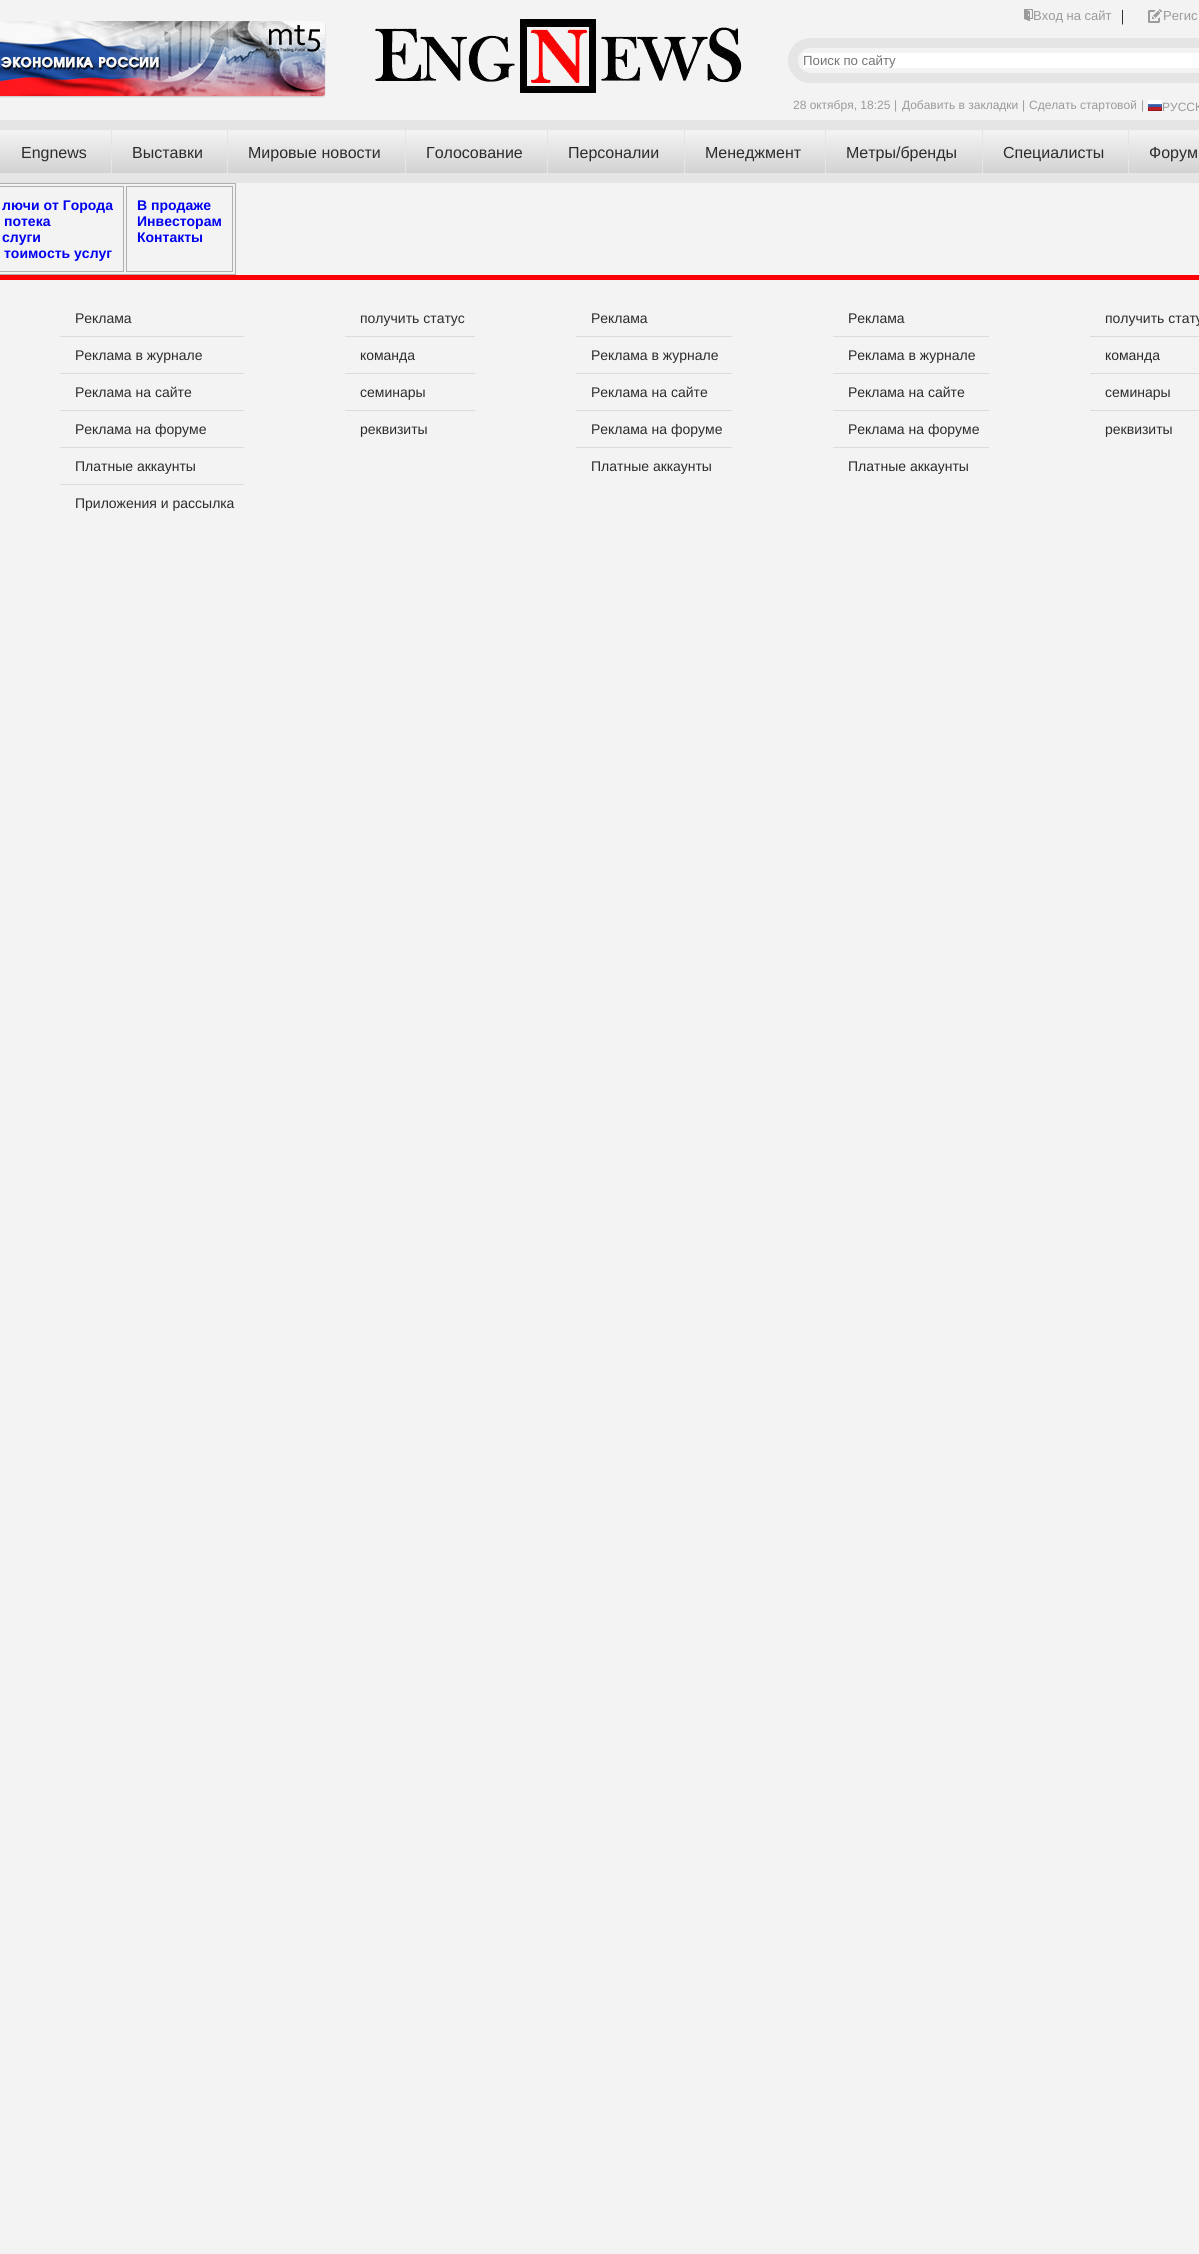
#include <cairo/cairo.h>
#include <math.h>
#include <stddef.h>


static void rounded_rect(cairo_t *cr, double x, double y, double w, double h, double r) {
  cairo_new_sub_path(cr);
  cairo_arc(cr, x + w - r, y + h - r, r, 0, M_PI / 2);
  cairo_arc(cr, x + r, y + h - r, r, M_PI / 2, M_PI);
  cairo_arc(cr, x + r, y + r, r, M_PI, 1.5 * M_PI);
  cairo_arc(cr, x + w - r, y + r, r, 1.5 * M_PI, 2 * M_PI);
  cairo_close_path(cr);
}

static void draw_image(cairo_t *cr, const char *path, double x, double y, double w, double h) {
  cairo_surface_t *image = cairo_image_surface_create_from_png(path);
  cairo_save(cr);
  cairo_set_source_surface(cr, image, x, y);
  cairo_rectangle(cr, x, y, w, h);
  cairo_fill(cr);
  cairo_restore(cr);
  cairo_surface_destroy(image);
}

static void draw(cairo_t *cr) {
  cairo_pattern_t *gradient;
  cairo_set_source_rgb(cr, 243 / 255.0, 243 / 255.0, 243 / 255.0);
  cairo_paint(cr);
  draw_image(cr, "images/1.png", 0, 21, 326, 77);
  draw_image(cr, "images/2.png", 375, 19, 367, 74);
  draw_image(cr, "images/3.png", 1024, 9, 9, 13);
  draw_image(cr, "images/4.png", 1148, 8, 15, 15);
  rounded_rect(cr, 793, 43, 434, 35, 17.5);
  cairo_set_source_rgb(cr, 229 / 255.0, 229 / 255.0, 229 / 255.0);
  cairo_set_line_width(cr, 10);
  cairo_stroke(cr);
  cairo_set_source_rgb(cr, 1, 1, 1);
  cairo_rectangle(cr, 803, 53, 396, 15);
  cairo_fill(cr);
  draw_image(cr, "images/5.png", 1148, 100, 14, 11);
  gradient = cairo_pattern_create_linear(600, 130, 600, 173);
  cairo_pattern_add_color_stop_rgba(gradient, 0, 244 / 255.0, 244 / 255.0, 244 / 255.0, 1);
  cairo_pattern_add_color_stop_rgba(gradient, 1, 210 / 255.0, 210 / 255.0, 210 / 255.0, 1);
  cairo_set_source(cr, gradient);
  cairo_pattern_destroy(gradient);
  cairo_rectangle(cr, 0, 134, 1199, 39);
  cairo_fill(cr);
  cairo_rectangle(cr, -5, 125, 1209, 53);
  cairo_set_source_rgb(cr, 229 / 255.0, 229 / 255.0, 229 / 255.0);
  cairo_stroke(cr);
  cairo_rectangle(cr, 111, 130, 1, 43);
  cairo_fill(cr);
  cairo_rectangle(cr, 227, 130, 1, 43);
  cairo_fill(cr);
  cairo_rectangle(cr, 405, 130, 1, 43);
  cairo_fill(cr);
  cairo_rectangle(cr, 547, 130, 1, 43);
  cairo_fill(cr);
  cairo_rectangle(cr, 684, 130, 1, 43);
  cairo_fill(cr);
  cairo_rectangle(cr, 825, 130, 1, 43);
  cairo_fill(cr);
  cairo_rectangle(cr, 982, 130, 1, 43);
  cairo_fill(cr);
  cairo_rectangle(cr, 1128, 130, 1, 43);
  cairo_fill(cr);
  cairo_rectangle(cr, -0.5, 183.5, 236, 91);
  cairo_set_source_rgb(cr, 175 / 255.0, 175 / 255.0, 175 / 255.0);
  cairo_set_line_width(cr, 1);
  cairo_stroke(cr);
  cairo_rectangle(cr, -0.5, 186.5, 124, 85);
  cairo_stroke(cr);
  cairo_rectangle(cr, 126.5, 186.5, 106, 85);
  cairo_stroke(cr);
  cairo_set_source_rgb(cr, 1, 0, 0);
  cairo_rectangle(cr, 0, 275, 1199, 5);
  cairo_fill(cr);
  cairo_set_source_rgb(cr, 219 / 255.0, 219 / 255.0, 219 / 255.0);
  cairo_rectangle(cr, 60, 336, 184, 1);
  cairo_fill(cr);
  cairo_rectangle(cr, 60, 373, 184, 1);
  cairo_fill(cr);
  cairo_rectangle(cr, 60, 410, 184, 1);
  cairo_fill(cr);
  cairo_rectangle(cr, 60, 447, 184, 1);
  cairo_fill(cr);
  cairo_rectangle(cr, 60, 484, 184, 1);
  cairo_fill(cr);
  cairo_rectangle(cr, 345, 336, 130, 1);
  cairo_fill(cr);
  cairo_rectangle(cr, 345, 373, 130, 1);
  cairo_fill(cr);
  cairo_rectangle(cr, 345, 410, 130, 1);
  cairo_fill(cr);
  cairo_rectangle(cr, 576, 336, 156, 1);
  cairo_fill(cr);
  cairo_rectangle(cr, 576, 373, 156, 1);
  cairo_fill(cr);
  cairo_rectangle(cr, 576, 410, 156, 1);
  cairo_fill(cr);
  cairo_rectangle(cr, 576, 447, 156, 1);
  cairo_fill(cr);
  cairo_rectangle(cr, 833, 336, 156, 1);
  cairo_fill(cr);
  cairo_rectangle(cr, 833, 373, 156, 1);
  cairo_fill(cr);
  cairo_rectangle(cr, 833, 410, 156, 1);
  cairo_fill(cr);
  cairo_rectangle(cr, 833, 447, 156, 1);
  cairo_fill(cr);
  cairo_rectangle(cr, 1090, 336, 109, 1);
  cairo_fill(cr);
  cairo_rectangle(cr, 1090, 373, 109, 1);
  cairo_fill(cr);
  cairo_rectangle(cr, 1090, 410, 109, 1);
  cairo_fill(cr);
  cairo_select_font_face(cr, "Liberation Sans", CAIRO_FONT_SLANT_NORMAL, CAIRO_FONT_WEIGHT_NORMAL);
  cairo_set_font_size(cr, 13);
  cairo_set_source_rgb(cr, 154 / 255.0, 154 / 255.0, 154 / 255.0);
  cairo_move_to(cr, 1033, 20);
  cairo_show_text(cr, "Вход на сайт");
  cairo_select_font_face(cr, "Liberation Serif", CAIRO_FONT_SLANT_NORMAL, CAIRO_FONT_WEIGHT_NORMAL);
  cairo_set_font_size(cr, 16);
  cairo_set_source_rgb(cr, 0, 0, 0);
  cairo_move_to(cr, 1121, 21);
  cairo_show_text(cr, "|");
  cairo_select_font_face(cr, "Liberation Sans", CAIRO_FONT_SLANT_NORMAL, CAIRO_FONT_WEIGHT_NORMAL);
  cairo_set_font_size(cr, 13);
  cairo_set_source_rgb(cr, 154 / 255.0, 154 / 255.0, 154 / 255.0);
  cairo_move_to(cr, 1163, 20);
  cairo_show_text(cr, "Регис");
  cairo_set_font_size(cr, 13.25);
  cairo_set_source_rgb(cr, 117 / 255.0, 117 / 255.0, 117 / 255.0);
  cairo_move_to(cr, 803, 65);
  cairo_show_text(cr, "Поиск по сайту");
  cairo_set_font_size(cr, 12);
  cairo_set_source_rgb(cr, 154 / 255.0, 154 / 255.0, 154 / 255.0);
  cairo_move_to(cr, 793, 109);
  cairo_show_text(cr, "28 октября, 18:25");
  cairo_move_to(cr, 894, 109);
  cairo_show_text(cr, "|");
  cairo_move_to(cr, 902, 109);
  cairo_show_text(cr, "Добавить в закладки");
  cairo_move_to(cr, 1022, 109);
  cairo_show_text(cr, "|");
  cairo_move_to(cr, 1029, 109);
  cairo_show_text(cr, "Сделать стартовой");
  cairo_move_to(cr, 1141, 109);
  cairo_show_text(cr, "|");
  cairo_move_to(cr, 1162, 111);
  cairo_show_text(cr, "РУССК");
  cairo_set_font_size(cr, 16);
  cairo_set_source_rgb(cr, 44 / 255.0, 44 / 255.0, 44 / 255.0);
  cairo_move_to(cr, 21, 158);
  cairo_show_text(cr, "Engnews");
  cairo_move_to(cr, 132, 158);
  cairo_show_text(cr, "Выставки");
  cairo_move_to(cr, 248, 158);
  cairo_show_text(cr, "Мировые новости");
  cairo_move_to(cr, 426, 158);
  cairo_show_text(cr, "Голосование");
  cairo_move_to(cr, 568, 158);
  cairo_show_text(cr, "Персоналии");
  cairo_move_to(cr, 705, 158);
  cairo_show_text(cr, "Менеджмент");
  cairo_move_to(cr, 846, 158);
  cairo_show_text(cr, "Метры/бренды");
  cairo_move_to(cr, 1003, 158);
  cairo_show_text(cr, "Специалисты");
  cairo_move_to(cr, 1149, 158);
  cairo_show_text(cr, "Форум");
  cairo_select_font_face(cr, "Liberation Sans", CAIRO_FONT_SLANT_NORMAL, CAIRO_FONT_WEIGHT_BOLD);
  cairo_set_font_size(cr, 14);
  cairo_set_source_rgb(cr, 0, 0, 238 / 255.0);
  cairo_move_to(cr, 2, 210);
  cairo_show_text(cr, "лючи от Города");
  cairo_move_to(cr, 4, 226);
  cairo_show_text(cr, "потека");
  cairo_move_to(cr, 2, 242);
  cairo_show_text(cr, "слуги");
  cairo_move_to(cr, 4, 258);
  cairo_show_text(cr, "тоимость услуг");
  cairo_move_to(cr, 137, 210);
  cairo_show_text(cr, "В продаже");
  cairo_move_to(cr, 137, 226);
  cairo_show_text(cr, "Инвесторам");
  cairo_move_to(cr, 137, 242);
  cairo_show_text(cr, "Контакты");
  cairo_select_font_face(cr, "Liberation Sans", CAIRO_FONT_SLANT_NORMAL, CAIRO_FONT_WEIGHT_NORMAL);
  cairo_set_source_rgb(cr, 44 / 255.0, 44 / 255.0, 44 / 255.0);
  cairo_move_to(cr, 75, 323);
  cairo_show_text(cr, "Реклама");
  cairo_move_to(cr, 75, 360);
  cairo_show_text(cr, "Реклама в журнале");
  cairo_move_to(cr, 75, 397);
  cairo_show_text(cr, "Реклама на сайте");
  cairo_move_to(cr, 75, 434);
  cairo_show_text(cr, "Реклама на форуме");
  cairo_move_to(cr, 75, 471);
  cairo_show_text(cr, "Платные аккаунты");
  cairo_move_to(cr, 75, 508);
  cairo_show_text(cr, "Приложения и рассылка");
  cairo_move_to(cr, 360, 323);
  cairo_show_text(cr, "получить статус");
  cairo_move_to(cr, 360, 360);
  cairo_show_text(cr, "команда");
  cairo_move_to(cr, 360, 397);
  cairo_show_text(cr, "семинары");
  cairo_move_to(cr, 360, 434);
  cairo_show_text(cr, "реквизиты");
  cairo_move_to(cr, 591, 323);
  cairo_show_text(cr, "Реклама");
  cairo_move_to(cr, 591, 360);
  cairo_show_text(cr, "Реклама в журнале");
  cairo_move_to(cr, 591, 397);
  cairo_show_text(cr, "Реклама на сайте");
  cairo_move_to(cr, 591, 434);
  cairo_show_text(cr, "Реклама на форуме");
  cairo_move_to(cr, 591, 471);
  cairo_show_text(cr, "Платные аккаунты");
  cairo_move_to(cr, 848, 323);
  cairo_show_text(cr, "Реклама");
  cairo_move_to(cr, 848, 360);
  cairo_show_text(cr, "Реклама в журнале");
  cairo_move_to(cr, 848, 397);
  cairo_show_text(cr, "Реклама на сайте");
  cairo_move_to(cr, 848, 434);
  cairo_show_text(cr, "Реклама на форуме");
  cairo_move_to(cr, 848, 471);
  cairo_show_text(cr, "Платные аккаунты");
  cairo_move_to(cr, 1105, 323);
  cairo_show_text(cr, "получить стату");
  cairo_move_to(cr, 1105, 360);
  cairo_show_text(cr, "команда");
  cairo_move_to(cr, 1105, 397);
  cairo_show_text(cr, "семинары");
  cairo_move_to(cr, 1105, 434);
  cairo_show_text(cr, "реквизиты");
}

int main(void) {
  cairo_surface_t *surface = cairo_image_surface_create(CAIRO_FORMAT_RGB24, 1199, 2254);
  cairo_t *cr = cairo_create(surface);
  cairo_font_options_t *options = cairo_font_options_create();
  cairo_font_options_set_hint_metrics(options, CAIRO_HINT_METRICS_OFF);
  cairo_font_options_set_hint_style(options, CAIRO_HINT_STYLE_NONE);
  cairo_set_font_options(cr, options);
  cairo_set_miter_limit(cr, 4);
  draw(cr);
  cairo_surface_write_to_png(surface, "out.png");
  cairo_font_options_destroy(options);
  cairo_destroy(cr);
  cairo_surface_destroy(surface);
  return 0;
}
